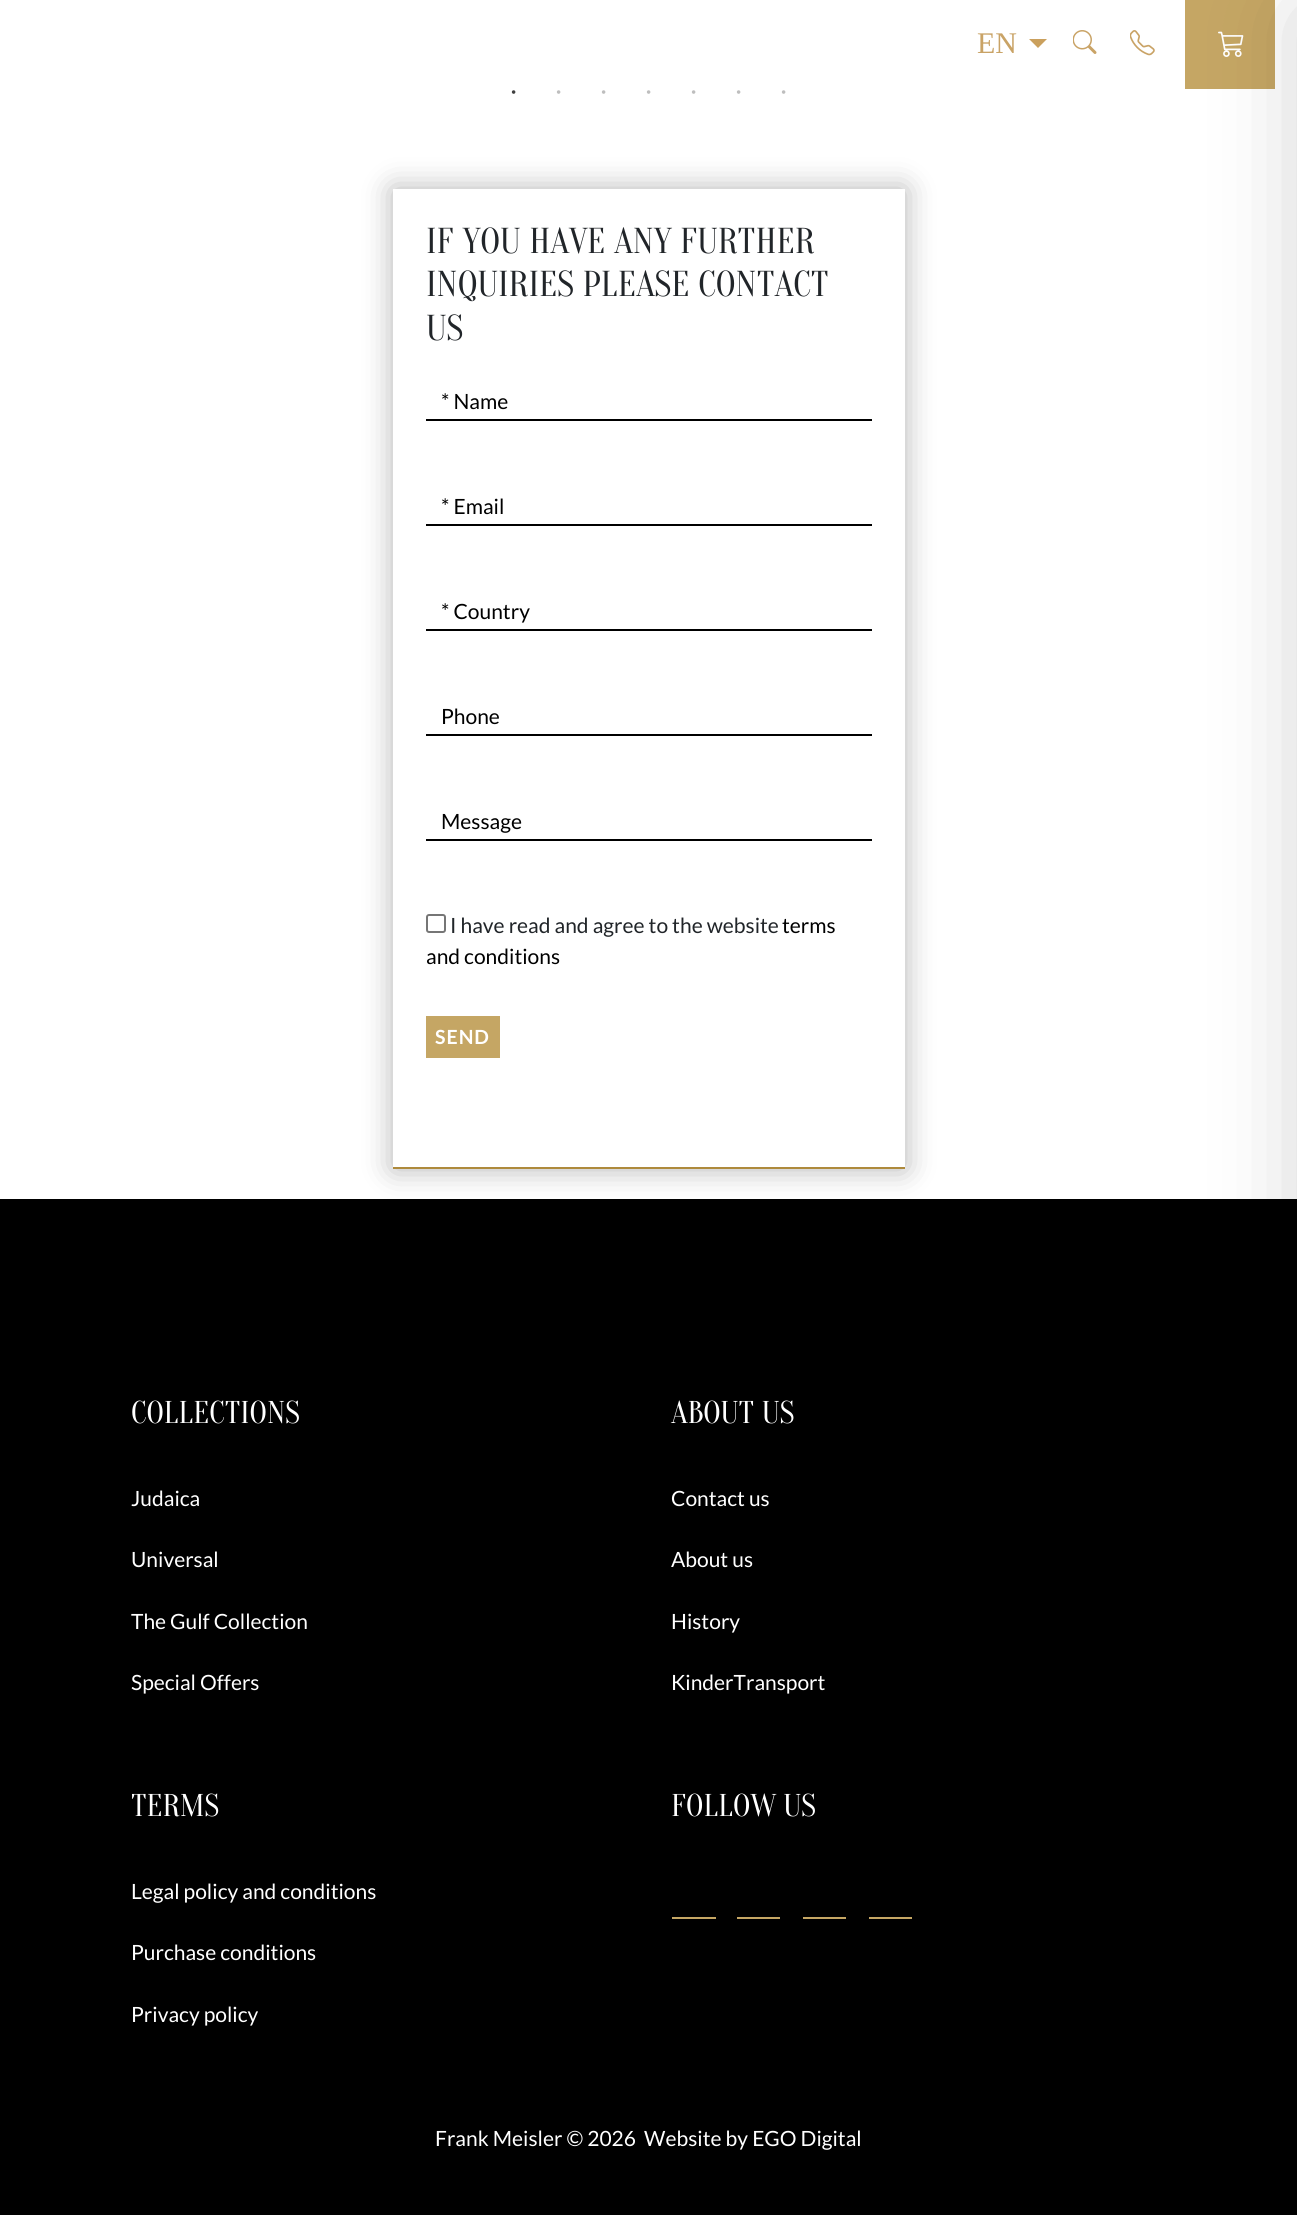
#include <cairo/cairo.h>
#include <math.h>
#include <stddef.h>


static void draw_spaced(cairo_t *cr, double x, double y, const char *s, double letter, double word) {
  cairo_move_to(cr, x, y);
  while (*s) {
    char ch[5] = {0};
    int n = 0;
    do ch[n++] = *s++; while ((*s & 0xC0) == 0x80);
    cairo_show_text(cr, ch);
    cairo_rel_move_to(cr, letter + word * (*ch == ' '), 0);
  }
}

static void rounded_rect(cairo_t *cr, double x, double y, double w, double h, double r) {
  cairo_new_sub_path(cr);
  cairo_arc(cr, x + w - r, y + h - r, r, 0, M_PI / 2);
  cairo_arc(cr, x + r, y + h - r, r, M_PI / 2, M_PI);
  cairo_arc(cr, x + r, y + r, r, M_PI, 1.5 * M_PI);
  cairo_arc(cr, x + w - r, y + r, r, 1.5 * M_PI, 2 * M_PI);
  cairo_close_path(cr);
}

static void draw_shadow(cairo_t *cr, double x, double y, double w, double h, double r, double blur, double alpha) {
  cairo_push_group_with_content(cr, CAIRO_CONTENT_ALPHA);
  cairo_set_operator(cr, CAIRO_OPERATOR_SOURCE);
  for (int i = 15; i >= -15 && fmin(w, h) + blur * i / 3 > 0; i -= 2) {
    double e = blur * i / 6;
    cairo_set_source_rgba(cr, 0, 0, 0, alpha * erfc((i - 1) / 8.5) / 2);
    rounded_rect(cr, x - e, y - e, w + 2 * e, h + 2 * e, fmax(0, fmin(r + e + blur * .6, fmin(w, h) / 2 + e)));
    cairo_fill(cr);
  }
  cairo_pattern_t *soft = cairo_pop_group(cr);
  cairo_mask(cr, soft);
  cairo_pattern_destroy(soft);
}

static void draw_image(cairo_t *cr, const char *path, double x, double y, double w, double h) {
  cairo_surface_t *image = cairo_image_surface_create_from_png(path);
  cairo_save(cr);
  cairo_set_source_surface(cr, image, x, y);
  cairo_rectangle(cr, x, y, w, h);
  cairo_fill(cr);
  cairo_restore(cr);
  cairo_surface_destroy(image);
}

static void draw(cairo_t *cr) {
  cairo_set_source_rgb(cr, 1, 1, 1);
  cairo_paint(cr);
  cairo_set_source_rgb(cr, 202 / 255.0, 160 / 255.0, 93 / 255.0);
  cairo_new_path(cr);
  cairo_move_to(cr, 1029, 39);
  cairo_line_to(cr, 1047, 39);
  cairo_line_to(cr, 1038, 48);
  cairo_close_path(cr);
  cairo_fill(cr);
  draw_image(cr, "images/1.png", 1073, 30, 24, 24);
  draw_image(cr, "images/2.png", 1130, 30, 25, 26);
  cairo_set_source_rgb(cr, 197 / 255.0, 166 / 255.0, 100 / 255.0);
  cairo_rectangle(cr, 1185, 0, 90, 89);
  cairo_fill(cr);
  draw_image(cr, "images/3.png", 1218, 31, 26, 26);
  cairo_set_source_rgb(cr, 0, 0, 0);
  draw_shadow(cr, 393, 189, 512, 980, 0, 15, 0.3);
  cairo_set_source_rgb(cr, 1, 1, 1);
  cairo_rectangle(cr, 393, 189, 512, 978);
  cairo_fill(cr);
  cairo_set_source_rgb(cr, 174 / 255.0, 138 / 255.0, 60 / 255.0);
  cairo_rectangle(cr, 393, 1167, 512, 2);
  cairo_fill(cr);
  cairo_set_source_rgb(cr, 0, 0, 0);
  cairo_rectangle(cr, 426, 419, 446, 2);
  cairo_fill(cr);
  cairo_rectangle(cr, 426, 524, 446, 2);
  cairo_fill(cr);
  cairo_rectangle(cr, 426, 629, 446, 2);
  cairo_fill(cr);
  cairo_rectangle(cr, 426, 734, 446, 2);
  cairo_fill(cr);
  cairo_rectangle(cr, 426, 839, 446, 2);
  cairo_fill(cr);
  rounded_rect(cr, 427, 915, 18, 17, 2);
  cairo_set_source_rgb(cr, 118 / 255.0, 118 / 255.0, 118 / 255.0);
  cairo_stroke(cr);
  cairo_set_source_rgb(cr, 197 / 255.0, 166 / 255.0, 100 / 255.0);
  cairo_rectangle(cr, 426, 1016, 74, 42);
  cairo_fill(cr);
  cairo_set_source_rgb(cr, 0, 0, 0);
  cairo_rectangle(cr, 0, 1199, 1297, 1016);
  cairo_fill(cr);
  cairo_set_source_rgb(cr, 0, 0, 0);
  draw_shadow(cr, 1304, 15, 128, 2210, 0, 45, 0.2);
  cairo_set_source_rgb(cr, 197 / 255.0, 166 / 255.0, 100 / 255.0);
  cairo_rectangle(cr, 672, 1917, 44, 2);
  cairo_fill(cr);
  cairo_rectangle(cr, 737, 1917, 43, 2);
  cairo_fill(cr);
  cairo_rectangle(cr, 803, 1917, 43, 2);
  cairo_fill(cr);
  cairo_rectangle(cr, 869, 1917, 43, 2);
  cairo_fill(cr);
  cairo_select_font_face(cr, "Liberation Serif", CAIRO_FONT_SLANT_NORMAL, CAIRO_FONT_WEIGHT_NORMAL);
  cairo_set_font_size(cr, 30);
  cairo_set_source_rgb(cr, 201 / 255.0, 163 / 255.0, 102 / 255.0);
  cairo_move_to(cr, 977, 53);
  cairo_show_text(cr, "EN");
  cairo_set_font_size(cr, 15);
  cairo_set_source_rgb(cr, 63 / 255.0, 63 / 255.0, 63 / 255.0);
  cairo_move_to(cr, 511, 97);
  cairo_show_text(cr, "•");
  cairo_set_source_rgb(cr, 190 / 255.0, 190 / 255.0, 190 / 255.0);
  cairo_move_to(cr, 556, 97);
  cairo_show_text(cr, "•");
  cairo_move_to(cr, 601, 97);
  cairo_show_text(cr, "•");
  cairo_move_to(cr, 646, 97);
  cairo_show_text(cr, "•");
  cairo_move_to(cr, 691, 97);
  cairo_show_text(cr, "•");
  cairo_move_to(cr, 736, 97);
  cairo_show_text(cr, "•");
  cairo_move_to(cr, 781, 97);
  cairo_show_text(cr, "•");
  cairo_select_font_face(cr, "Oranienbaum", CAIRO_FONT_SLANT_NORMAL, CAIRO_FONT_WEIGHT_NORMAL);
  cairo_set_font_size(cr, 36);
  cairo_set_source_rgb(cr, 33 / 255.0, 37 / 255.0, 41 / 255.0);
  cairo_move_to(cr, 426, 253);
  cairo_show_text(cr, "IF YOU HAVE ANY FURTHER");
  cairo_move_to(cr, 426, 296);
  cairo_show_text(cr, "INQUIRIES PLEASE CONTACT");
  cairo_move_to(cr, 426, 340);
  cairo_show_text(cr, "US");
  cairo_select_font_face(cr, "Lato", CAIRO_FONT_SLANT_NORMAL, CAIRO_FONT_WEIGHT_NORMAL);
  cairo_set_font_size(cr, 21);
  cairo_set_source_rgb(cr, 0, 0, 0);
  cairo_move_to(cr, 441, 409);
  cairo_show_text(cr, "* Name");
  cairo_move_to(cr, 441, 514);
  cairo_show_text(cr, "* Email");
  cairo_move_to(cr, 441, 619);
  cairo_show_text(cr, "* Country");
  cairo_move_to(cr, 441, 724);
  cairo_show_text(cr, "Phone");
  cairo_move_to(cr, 441, 829);
  cairo_show_text(cr, "Message");
  cairo_set_source_rgb(cr, 33 / 255.0, 37 / 255.0, 41 / 255.0);
  cairo_move_to(cr, 450, 933);
  cairo_show_text(cr, "I have read and agree to the website");
  cairo_set_source_rgb(cr, 0, 0, 0);
  cairo_move_to(cr, 782, 933);
  cairo_show_text(cr, "terms");
  cairo_move_to(cr, 426, 964);
  cairo_show_text(cr, "and conditions");
  cairo_select_font_face(cr, "Lato", CAIRO_FONT_SLANT_NORMAL, CAIRO_FONT_WEIGHT_BOLD);
  cairo_set_font_size(cr, 19.5);
  cairo_set_source_rgb(cr, 1, 1, 1);
  draw_spaced(cr, 435, 1044, "SEND", 1, 0);
  cairo_select_font_face(cr, "Oranienbaum", CAIRO_FONT_SLANT_NORMAL, CAIRO_FONT_WEIGHT_NORMAL);
  cairo_set_font_size(cr, 31.5);
  cairo_move_to(cr, 131, 1423);
  cairo_show_text(cr, "COLLECTIONS");
  cairo_select_font_face(cr, "Lato", CAIRO_FONT_SLANT_NORMAL, CAIRO_FONT_WEIGHT_NORMAL);
  cairo_set_font_size(cr, 21);
  cairo_move_to(cr, 131, 1506);
  cairo_show_text(cr, "Judaica");
  cairo_move_to(cr, 131, 1567);
  cairo_show_text(cr, "Universal");
  cairo_move_to(cr, 131, 1629);
  cairo_show_text(cr, "The Gulf Collection");
  cairo_move_to(cr, 131, 1690);
  cairo_show_text(cr, "Special Offers");
  cairo_select_font_face(cr, "Oranienbaum", CAIRO_FONT_SLANT_NORMAL, CAIRO_FONT_WEIGHT_NORMAL);
  cairo_set_font_size(cr, 31.5);
  cairo_move_to(cr, 671, 1423);
  cairo_show_text(cr, "ABOUT US");
  cairo_select_font_face(cr, "Lato", CAIRO_FONT_SLANT_NORMAL, CAIRO_FONT_WEIGHT_NORMAL);
  cairo_set_font_size(cr, 21);
  cairo_move_to(cr, 671, 1506);
  cairo_show_text(cr, "Contact us");
  cairo_move_to(cr, 671, 1567);
  cairo_show_text(cr, "About us");
  cairo_move_to(cr, 671, 1629);
  cairo_show_text(cr, "History");
  cairo_move_to(cr, 671, 1690);
  cairo_show_text(cr, "KinderTransport");
  cairo_select_font_face(cr, "Oranienbaum", CAIRO_FONT_SLANT_NORMAL, CAIRO_FONT_WEIGHT_NORMAL);
  cairo_set_font_size(cr, 31.5);
  cairo_move_to(cr, 131, 1816);
  cairo_show_text(cr, "TERMS");
  cairo_select_font_face(cr, "Lato", CAIRO_FONT_SLANT_NORMAL, CAIRO_FONT_WEIGHT_NORMAL);
  cairo_set_font_size(cr, 21);
  cairo_move_to(cr, 131, 1899);
  cairo_show_text(cr, "Legal policy and conditions");
  cairo_move_to(cr, 131, 1960);
  cairo_show_text(cr, "Purchase conditions");
  cairo_move_to(cr, 131, 2022);
  cairo_show_text(cr, "Privacy policy");
  cairo_select_font_face(cr, "Oranienbaum", CAIRO_FONT_SLANT_NORMAL, CAIRO_FONT_WEIGHT_NORMAL);
  cairo_set_font_size(cr, 31.5);
  cairo_move_to(cr, 671, 1816);
  cairo_show_text(cr, "FOLLOW US");
  cairo_select_font_face(cr, "Lato", CAIRO_FONT_SLANT_NORMAL, CAIRO_FONT_WEIGHT_NORMAL);
  cairo_set_font_size(cr, 21);
  cairo_move_to(cr, 435, 2146);
  cairo_show_text(cr, "Frank Meisler © 2026  Website by EGO Digital");
}

int main(void) {
  cairo_surface_t *surface = cairo_image_surface_create(CAIRO_FORMAT_RGB24, 1297, 2215);
  cairo_t *cr = cairo_create(surface);
  cairo_font_options_t *options = cairo_font_options_create();
  cairo_font_options_set_hint_metrics(options, CAIRO_HINT_METRICS_OFF);
  cairo_font_options_set_hint_style(options, CAIRO_HINT_STYLE_NONE);
  cairo_set_font_options(cr, options);
  cairo_set_miter_limit(cr, 4);
  draw(cr);
  cairo_surface_write_to_png(surface, "out.png");
  cairo_font_options_destroy(options);
  cairo_destroy(cr);
  cairo_surface_destroy(surface);
  return 0;
}
